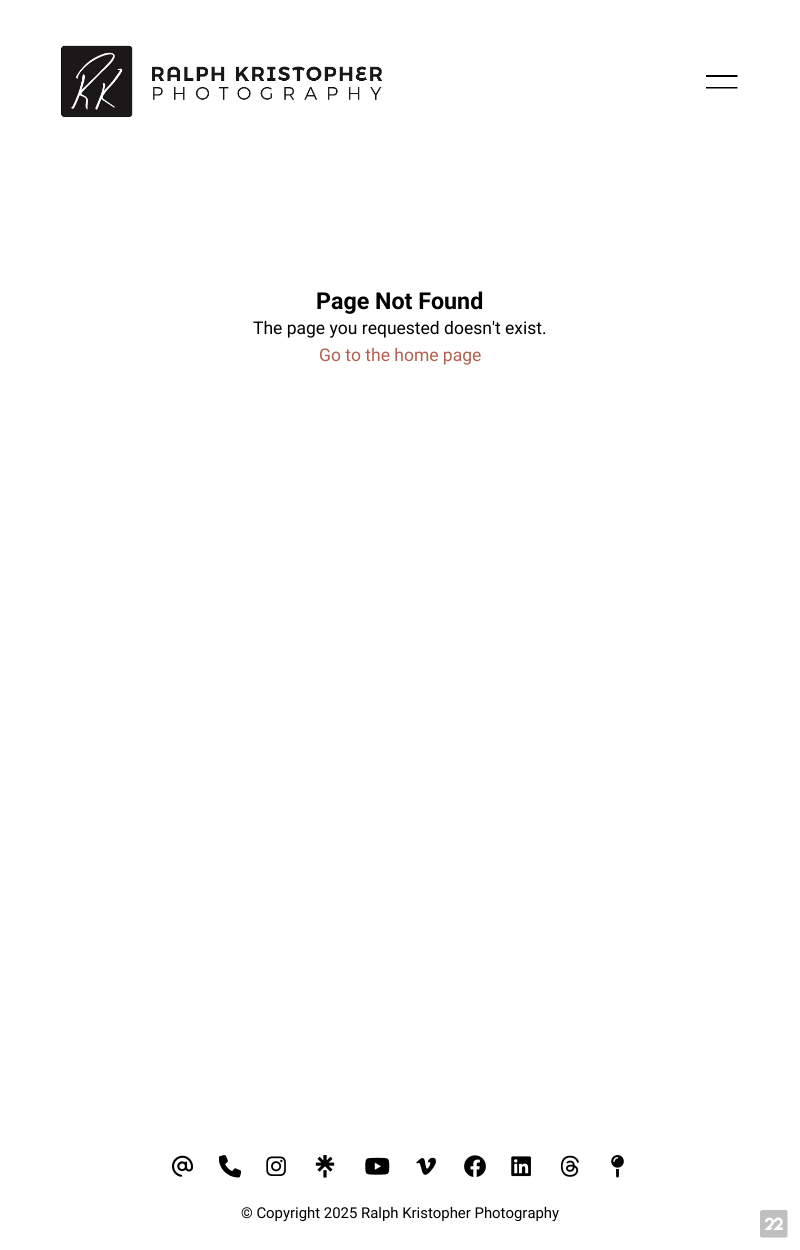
#include <cairo/cairo.h>
#include <math.h>
#include <stddef.h>


static void draw_image(cairo_t *cr, const char *path, double x, double y, double w, double h) {
  cairo_surface_t *image = cairo_image_surface_create_from_png(path);
  cairo_save(cr);
  cairo_set_source_surface(cr, image, x, y);
  cairo_rectangle(cr, x, y, w, h);
  cairo_fill(cr);
  cairo_restore(cr);
  cairo_surface_destroy(image);
}

static void draw(cairo_t *cr) {
  cairo_set_source_rgb(cr, 1, 1, 1);
  cairo_paint(cr);
  draw_image(cr, "images/1.png", 60, 45, 322, 73);
  cairo_set_source_rgb(cr, 0, 0, 0);
  cairo_new_path(cr);
  cairo_move_to(cr, 737.5, 87);
  cairo_line_to(cr, 737.5, 88.5);
  cairo_line_to(cr, 706, 88.5);
  cairo_line_to(cr, 706, 87);
  cairo_close_path(cr);
  cairo_move_to(cr, 737.5, 75);
  cairo_line_to(cr, 737.5, 77);
  cairo_line_to(cr, 706, 77);
  cairo_line_to(cr, 706, 75);
  cairo_close_path(cr);
  cairo_fill(cr);
  draw_image(cr, "images/2.png", 171, 1155, 23, 22);
  draw_image(cr, "images/3.png", 219, 1155, 22, 23);
  draw_image(cr, "images/4.png", 266, 1156, 20, 20);
  draw_image(cr, "images/5.png", 315, 1155, 20, 23);
  draw_image(cr, "images/6.png", 365, 1157, 25, 18);
  draw_image(cr, "images/7.png", 416, 1157, 20, 18);
  draw_image(cr, "images/8.png", 464, 1155, 22, 22);
  draw_image(cr, "images/9.png", 511, 1156, 20, 21);
  draw_image(cr, "images/10.png", 560, 1155, 19, 22);
  draw_image(cr, "images/11.png", 611, 1155, 13, 23);
  draw_image(cr, "images/12.png", 760, 1210, 28, 28);
  cairo_select_font_face(cr, "Roboto", CAIRO_FONT_SLANT_NORMAL, CAIRO_FONT_WEIGHT_BOLD);
  cairo_set_font_size(cr, 23.25);
  cairo_move_to(cr, 316, 309);
  cairo_show_text(cr, "Page Not Found");
  cairo_select_font_face(cr, "Roboto", CAIRO_FONT_SLANT_NORMAL, CAIRO_FONT_WEIGHT_NORMAL);
  cairo_set_font_size(cr, 17.5);
  cairo_move_to(cr, 253, 334);
  cairo_show_text(cr, "The page you requested doesn't exist.");
  cairo_set_source_rgb(cr, 178 / 255.0, 96 / 255.0, 80 / 255.0);
  cairo_move_to(cr, 319, 361);
  cairo_show_text(cr, "Go to the home page");
  cairo_set_font_size(cr, 14.9);
  cairo_set_source_rgb(cr, 0, 0, 0);
  cairo_move_to(cr, 241, 1218);
  cairo_show_text(cr, "© Copyright 2025 Ralph Kristopher Photography");
}

int main(void) {
  cairo_surface_t *surface = cairo_image_surface_create(CAIRO_FORMAT_RGB24, 800, 1250);
  cairo_t *cr = cairo_create(surface);
  cairo_font_options_t *options = cairo_font_options_create();
  cairo_font_options_set_hint_metrics(options, CAIRO_HINT_METRICS_OFF);
  cairo_font_options_set_hint_style(options, CAIRO_HINT_STYLE_NONE);
  cairo_set_font_options(cr, options);
  cairo_set_miter_limit(cr, 4);
  draw(cr);
  cairo_surface_write_to_png(surface, "out.png");
  cairo_font_options_destroy(options);
  cairo_destroy(cr);
  cairo_surface_destroy(surface);
  return 0;
}
